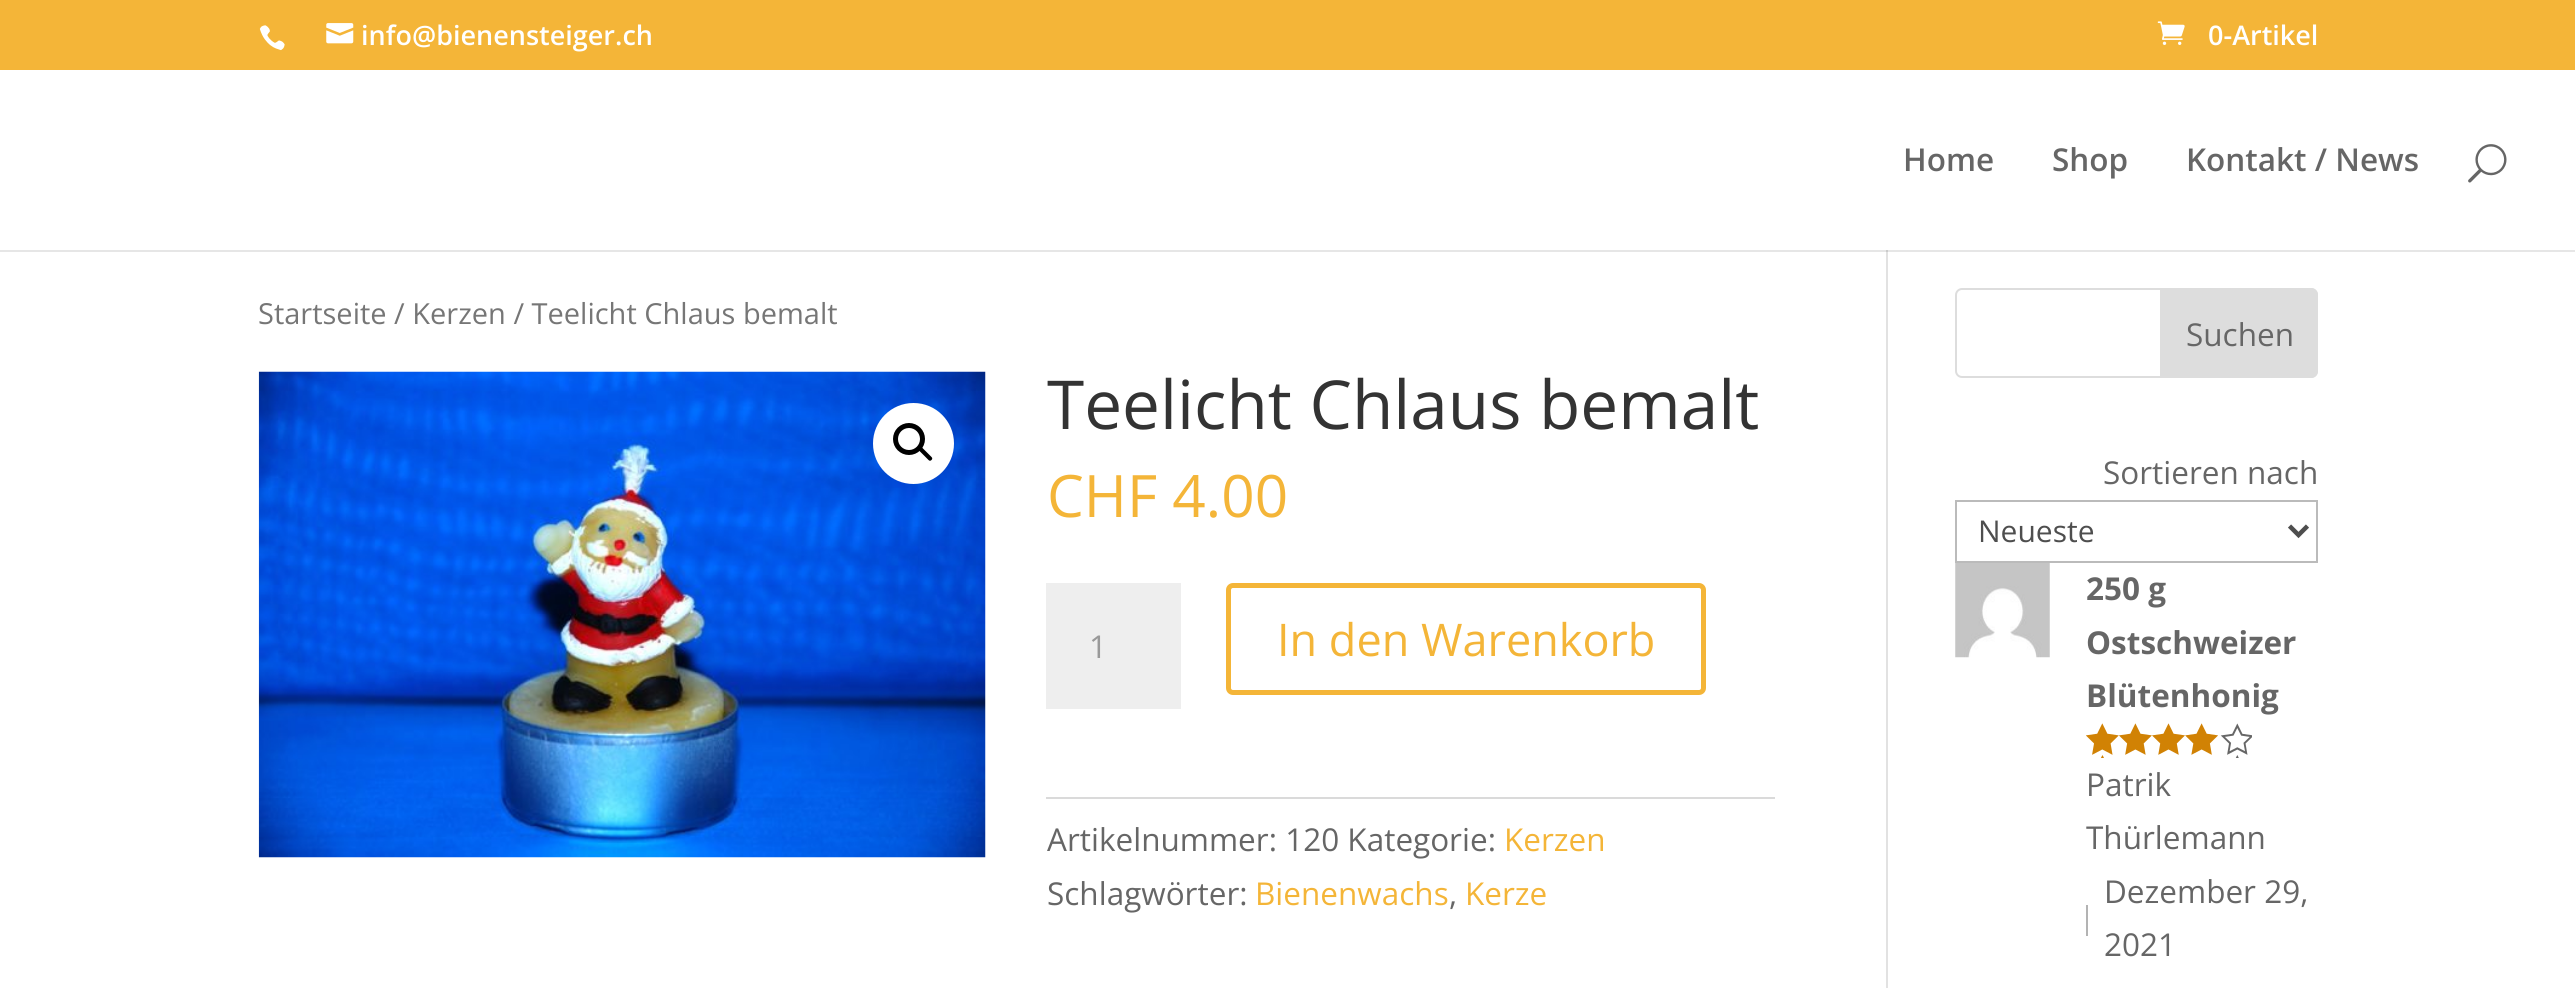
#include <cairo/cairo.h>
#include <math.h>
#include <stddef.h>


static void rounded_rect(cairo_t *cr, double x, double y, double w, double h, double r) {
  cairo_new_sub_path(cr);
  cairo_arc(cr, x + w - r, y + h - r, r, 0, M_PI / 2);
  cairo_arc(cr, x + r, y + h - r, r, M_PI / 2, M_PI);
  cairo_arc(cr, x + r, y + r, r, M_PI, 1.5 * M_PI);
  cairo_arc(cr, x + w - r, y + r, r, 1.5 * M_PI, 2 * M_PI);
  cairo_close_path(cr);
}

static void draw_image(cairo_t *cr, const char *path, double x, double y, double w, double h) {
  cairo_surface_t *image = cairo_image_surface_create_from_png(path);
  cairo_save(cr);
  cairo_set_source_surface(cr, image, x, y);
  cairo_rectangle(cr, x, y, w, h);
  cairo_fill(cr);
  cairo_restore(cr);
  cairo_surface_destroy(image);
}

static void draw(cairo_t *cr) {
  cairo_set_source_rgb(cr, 1, 1, 1);
  cairo_paint(cr);
  cairo_set_source_rgb(cr, 230 / 255.0, 230 / 255.0, 230 / 255.0);
  cairo_rectangle(cr, 0, 250, 2575, 2);
  cairo_fill(cr);
  cairo_set_source_rgb(cr, 244 / 255.0, 181 / 255.0, 56 / 255.0);
  cairo_rectangle(cr, 0, 0, 2575, 70);
  cairo_fill(cr);
  draw_image(cr, "images/1.png", 259, 25, 26, 26);
  draw_image(cr, "images/2.png", 326, 23, 28, 21);
  draw_image(cr, "images/3.png", 2157, 21, 28, 24);
  draw_image(cr, "images/4.png", 2468, 144, 39, 39);
  cairo_set_source_rgb(cr, 226 / 255.0, 226 / 255.0, 226 / 255.0);
  cairo_rectangle(cr, 1886, 252, 2, 736);
  cairo_fill(cr);
  cairo_set_source_rgb(cr, 203 / 255.0, 203 / 255.0, 203 / 255.0);
  cairo_rectangle(cr, 1886, 250, 2, 2);
  cairo_fill(cr);
  draw_image(cr, "images/5.png", 258, 371, 728, 487);
  cairo_set_source_rgb(cr, 1, 1, 1);
  cairo_arc(cr, 913.5, 443.5, 40.5, 0, 2 * M_PI);
  cairo_fill(cr);
  cairo_arc(cr, 909, 439, 13.5, 0, 2 * M_PI);
  cairo_set_source_rgb(cr, 0, 0, 0);
  cairo_set_line_width(cr, 5);
  cairo_stroke(cr);
  cairo_new_path(cr);
  cairo_move_to(cr, 919, 447.5);
  cairo_curve_to(cr, 919.5, 446.5, 921, 446.5, 922, 447.5);
  cairo_line_to(cr, 931.5, 457);
  cairo_curve_to(cr, 932.5, 458, 932.5, 459, 931.5, 460);
  cairo_curve_to(cr, 930.5, 461, 929.5, 461, 928.5, 460);
  cairo_line_to(cr, 919, 450.5);
  cairo_curve_to(cr, 918, 449.5, 918, 448.5, 919, 447.5);
  cairo_close_path(cr);
  cairo_fill(cr);
  cairo_set_source_rgb(cr, 238 / 255.0, 238 / 255.0, 238 / 255.0);
  cairo_rectangle(cr, 1046, 583, 135, 126);
  cairo_fill(cr);
  rounded_rect(cr, 1228.5, 585.5, 475, 107, 4.5);
  cairo_set_source_rgb(cr, 244 / 255.0, 181 / 255.0, 56 / 255.0);
  cairo_stroke(cr);
  cairo_set_source_rgb(cr, 218 / 255.0, 218 / 255.0, 218 / 255.0);
  cairo_rectangle(cr, 1046, 797, 729, 2);
  cairo_fill(cr);
  rounded_rect(cr, 1956, 289, 361, 88, 6);
  cairo_set_source_rgb(cr, 221 / 255.0, 221 / 255.0, 221 / 255.0);
  cairo_set_line_width(cr, 2);
  cairo_stroke(cr);
  cairo_new_path(cr);
  cairo_move_to(cr, 2161, 289);
  cairo_line_to(cr, 2311, 289);
  cairo_curve_to(cr, 2314.5, 289, 2317, 291.5, 2317, 295);
  cairo_line_to(cr, 2317, 371);
  cairo_curve_to(cr, 2317, 374.5, 2314.5, 377, 2311, 377);
  cairo_line_to(cr, 2161, 377);
  cairo_close_path(cr);
  cairo_fill_preserve(cr);
  cairo_stroke(cr);
  cairo_rectangle(cr, 1956, 501, 361, 61);
  cairo_set_source_rgb(cr, 187 / 255.0, 187 / 255.0, 187 / 255.0);
  cairo_stroke(cr);
  cairo_new_path(cr);
  cairo_move_to(cr, 2289.5, 526);
  cairo_line_to(cr, 2298.5, 535);
  cairo_line_to(cr, 2307.5, 526);
  cairo_set_source_rgb(cr, 78 / 255.0, 78 / 255.0, 78 / 255.0);
  cairo_set_line_width(cr, 4.5);
  cairo_stroke(cr);
  draw_image(cr, "images/6.png", 1955, 563, 95, 95);
  draw_image(cr, "images/7.png", 2086, 723, 132, 32);
  cairo_save(cr);
  cairo_rectangle(cr, 2086, 722, 135, 36);
  cairo_clip(cr);
  cairo_set_source_rgb(cr, 209 / 255.0, 130 / 255.0, 4 / 255.0);
  cairo_new_path(cr);
  cairo_move_to(cr, 2102.5, 755);
  cairo_line_to(cr, 2107.5, 765);
  cairo_line_to(cr, 2119, 767);
  cairo_line_to(cr, 2110.5, 775);
  cairo_line_to(cr, 2112.5, 786.5);
  cairo_line_to(cr, 2102.5, 781);
  cairo_line_to(cr, 2092, 786.5);
  cairo_line_to(cr, 2094, 775);
  cairo_line_to(cr, 2086, 767);
  cairo_line_to(cr, 2097, 765);
  cairo_close_path(cr);
  cairo_fill(cr);
  cairo_restore(cr);
  draw_image(cr, "images/8.png", 2220, 723, 32, 32);
  draw_image(cr, "images/9.png", 2235, 755, 4, 3);
  cairo_set_source_rgb(cr, 179 / 255.0, 179 / 255.0, 179 / 255.0);
  cairo_rectangle(cr, 2086, 905, 2, 31);
  cairo_fill(cr);
  cairo_select_font_face(cr, "Open Sans SemiBold", CAIRO_FONT_SLANT_NORMAL, CAIRO_FONT_WEIGHT_NORMAL);
  cairo_set_font_size(cr, 27);
  cairo_set_source_rgb(cr, 1, 1, 1);
  cairo_move_to(cr, 361, 45);
  cairo_show_text(cr, "info@bienensteiger.ch");
  cairo_move_to(cr, 2208, 45);
  cairo_show_text(cr, "0-Artikel");
  cairo_set_font_size(cr, 31.5);
  cairo_set_source_rgb(cr, 102 / 255.0, 102 / 255.0, 102 / 255.0);
  cairo_move_to(cr, 1903, 171);
  cairo_show_text(cr, "Home");
  cairo_move_to(cr, 2052, 171);
  cairo_show_text(cr, "Shop");
  cairo_move_to(cr, 2186, 171);
  cairo_show_text(cr, "Kontakt / News");
  cairo_select_font_face(cr, "Open Sans", CAIRO_FONT_SLANT_NORMAL, CAIRO_FONT_WEIGHT_NORMAL);
  cairo_set_font_size(cr, 29);
  cairo_set_source_rgb(cr, 118 / 255.0, 118 / 255.0, 118 / 255.0);
  cairo_move_to(cr, 258, 324);
  cairo_show_text(cr, "Startseite / Kerzen / Teelicht Chlaus bemalt");
  cairo_set_font_size(cr, 67.5);
  cairo_set_source_rgb(cr, 51 / 255.0, 51 / 255.0, 51 / 255.0);
  cairo_move_to(cr, 1047, 429);
  cairo_show_text(cr, "Teelicht Chlaus bemalt");
  cairo_set_font_size(cr, 58.5);
  cairo_set_source_rgb(cr, 244 / 255.0, 181 / 255.0, 56 / 255.0);
  cairo_move_to(cr, 1047, 517);
  cairo_show_text(cr, "CHF 4.00");
  cairo_set_font_size(cr, 31.5);
  cairo_set_source_rgb(cr, 153 / 255.0, 153 / 255.0, 153 / 255.0);
  cairo_move_to(cr, 1089, 658);
  cairo_show_text(cr, "1");
  cairo_set_font_size(cr, 45);
  cairo_set_source_rgb(cr, 244 / 255.0, 181 / 255.0, 56 / 255.0);
  cairo_move_to(cr, 1277, 656);
  cairo_show_text(cr, "In den Warenkorb");
  cairo_set_font_size(cr, 31.5);
  cairo_set_source_rgb(cr, 102 / 255.0, 102 / 255.0, 102 / 255.0);
  cairo_move_to(cr, 1047, 851);
  cairo_show_text(cr, "Artikelnummer: 120 Kategorie:");
  cairo_set_source_rgb(cr, 244 / 255.0, 181 / 255.0, 56 / 255.0);
  cairo_move_to(cr, 1504, 851);
  cairo_show_text(cr, "Kerzen");
  cairo_set_source_rgb(cr, 102 / 255.0, 102 / 255.0, 102 / 255.0);
  cairo_move_to(cr, 1047, 905);
  cairo_show_text(cr, "Schlagwörter:");
  cairo_set_source_rgb(cr, 244 / 255.0, 181 / 255.0, 56 / 255.0);
  cairo_move_to(cr, 1255, 905);
  cairo_show_text(cr, "Bienenwachs");
  cairo_set_source_rgb(cr, 102 / 255.0, 102 / 255.0, 102 / 255.0);
  cairo_move_to(cr, 1449, 905);
  cairo_show_text(cr, ",");
  cairo_set_source_rgb(cr, 244 / 255.0, 181 / 255.0, 56 / 255.0);
  cairo_move_to(cr, 1465, 905);
  cairo_show_text(cr, "Kerze");
  cairo_set_source_rgb(cr, 102 / 255.0, 102 / 255.0, 102 / 255.0);
  cairo_move_to(cr, 2186, 346);
  cairo_show_text(cr, "Suchen");
  cairo_move_to(cr, 2103, 484);
  cairo_show_text(cr, "Sortieren nach");
  cairo_set_font_size(cr, 30);
  cairo_set_source_rgb(cr, 78 / 255.0, 78 / 255.0, 78 / 255.0);
  cairo_move_to(cr, 1978, 542);
  cairo_show_text(cr, "Neueste");
  cairo_select_font_face(cr, "Open Sans", CAIRO_FONT_SLANT_NORMAL, CAIRO_FONT_WEIGHT_BOLD);
  cairo_set_font_size(cr, 31.5);
  cairo_set_source_rgb(cr, 102 / 255.0, 102 / 255.0, 102 / 255.0);
  cairo_move_to(cr, 2086, 600);
  cairo_show_text(cr, "250 g");
  cairo_move_to(cr, 2086, 654);
  cairo_show_text(cr, "Ostschweizer");
  cairo_move_to(cr, 2086, 707);
  cairo_show_text(cr, "Blütenhonig");
  cairo_select_font_face(cr, "Open Sans", CAIRO_FONT_SLANT_NORMAL, CAIRO_FONT_WEIGHT_NORMAL);
  cairo_move_to(cr, 2086, 796);
  cairo_show_text(cr, "Patrik");
  cairo_move_to(cr, 2086, 849);
  cairo_show_text(cr, "Thürlemann");
  cairo_move_to(cr, 2104, 903);
  cairo_show_text(cr, "Dezember 29,");
  cairo_move_to(cr, 2104, 956);
  cairo_show_text(cr, "2021");
}

int main(void) {
  cairo_surface_t *surface = cairo_image_surface_create(CAIRO_FORMAT_RGB24, 2575, 988);
  cairo_t *cr = cairo_create(surface);
  cairo_font_options_t *options = cairo_font_options_create();
  cairo_font_options_set_hint_metrics(options, CAIRO_HINT_METRICS_OFF);
  cairo_font_options_set_hint_style(options, CAIRO_HINT_STYLE_NONE);
  cairo_set_font_options(cr, options);
  cairo_set_miter_limit(cr, 4);
  draw(cr);
  cairo_surface_write_to_png(surface, "out.png");
  cairo_font_options_destroy(options);
  cairo_destroy(cr);
  cairo_surface_destroy(surface);
  return 0;
}
